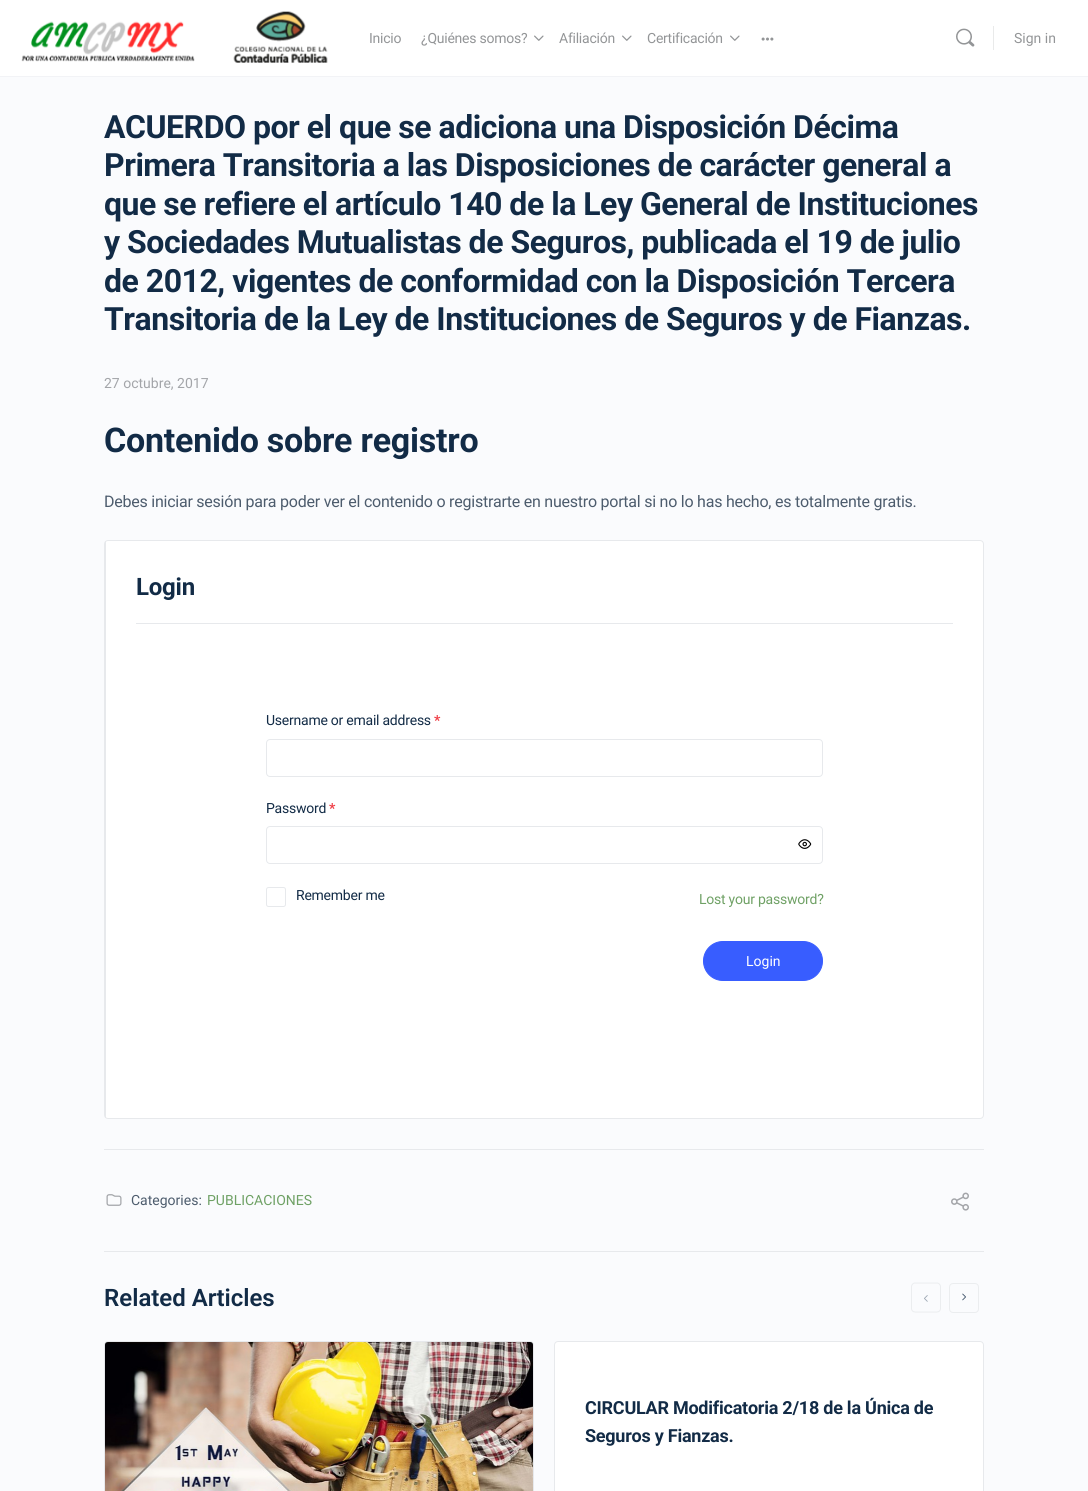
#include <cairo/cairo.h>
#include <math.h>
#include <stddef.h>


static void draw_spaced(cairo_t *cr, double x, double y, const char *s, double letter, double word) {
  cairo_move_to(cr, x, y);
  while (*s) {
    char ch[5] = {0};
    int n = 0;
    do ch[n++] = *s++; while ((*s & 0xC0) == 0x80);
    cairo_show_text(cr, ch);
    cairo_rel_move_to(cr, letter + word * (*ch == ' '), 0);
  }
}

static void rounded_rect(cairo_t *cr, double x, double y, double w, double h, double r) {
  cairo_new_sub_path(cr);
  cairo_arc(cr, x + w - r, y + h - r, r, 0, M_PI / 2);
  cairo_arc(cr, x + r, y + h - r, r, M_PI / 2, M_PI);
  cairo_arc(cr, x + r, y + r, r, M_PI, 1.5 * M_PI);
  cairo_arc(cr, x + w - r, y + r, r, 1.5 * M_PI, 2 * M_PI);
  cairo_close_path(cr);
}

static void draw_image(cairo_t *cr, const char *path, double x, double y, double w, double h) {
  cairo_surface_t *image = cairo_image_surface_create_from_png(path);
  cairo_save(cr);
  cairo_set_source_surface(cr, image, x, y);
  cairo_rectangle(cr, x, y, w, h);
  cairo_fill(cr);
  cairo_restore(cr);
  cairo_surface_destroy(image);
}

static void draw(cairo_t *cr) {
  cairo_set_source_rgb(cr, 250 / 255.0, 251 / 255.0, 253 / 255.0);
  cairo_paint(cr);
  cairo_set_source_rgb(cr, 242 / 255.0, 243 / 255.0, 246 / 255.0);
  cairo_rectangle(cr, 0, 76, 1088, 1);
  cairo_fill(cr);
  cairo_set_source_rgb(cr, 1, 1, 1);
  cairo_rectangle(cr, 0, 0, 1088, 76);
  cairo_fill(cr);
  draw_image(cr, "images/1.png", 21, 11, 307, 52);
  draw_image(cr, "images/2.png", 534, 35, 10, 6);
  draw_image(cr, "images/2.png", 622, 35, 10, 6);
  draw_image(cr, "images/2.png", 730, 35, 10, 6);
  draw_image(cr, "images/3.png", 761, 37, 13, 4);
  draw_image(cr, "images/4.png", 956, 28, 19, 19);
  cairo_set_source_rgb(cr, 233 / 255.0, 234 / 255.0, 234 / 255.0);
  cairo_rectangle(cr, 993, 26, 1, 24);
  cairo_fill(cr);
  cairo_set_source_rgb(cr, 1, 1, 1);
  rounded_rect(cr, 104.5, 540.5, 879, 578, 3.5);
  cairo_fill_preserve(cr);
  cairo_set_source_rgb(cr, 231 / 255.0, 233 / 255.0, 236 / 255.0);
  cairo_set_line_width(cr, 1);
  cairo_stroke(cr);
  cairo_rectangle(cr, 105, 541, 1, 577);
  cairo_fill(cr);
  cairo_rectangle(cr, 136, 623, 817, 1);
  cairo_fill(cr);
  rounded_rect(cr, 266.5, 739.5, 556, 37, 3.5);
  cairo_stroke(cr);
  rounded_rect(cr, 266.5, 826.5, 556, 37, 3.5);
  cairo_stroke(cr);
  draw_image(cr, "images/5.png", 798, 839, 14, 10);
  rounded_rect(cr, 266.5, 887.5, 19, 19, 2);
  cairo_stroke(cr);
  cairo_set_source_rgb(cr, 56 / 255.0, 93 / 255.0, 1);
  rounded_rect(cr, 703.5, 941.5, 119, 39, 19.5);
  cairo_fill_preserve(cr);
  cairo_stroke(cr);
  cairo_set_source_rgb(cr, 231 / 255.0, 233 / 255.0, 236 / 255.0);
  cairo_rectangle(cr, 104, 1149, 880, 1);
  cairo_fill(cr);
  draw_image(cr, "images/6.png", 106, 1194, 16, 12);
  draw_image(cr, "images/7.png", 951, 1192, 18, 19);
  cairo_rectangle(cr, 104, 1251, 880, 1);
  cairo_fill(cr);
  cairo_new_path(cr);
  cairo_move_to(cr, 937, 1312);
  cairo_line_to(cr, 915, 1312);
  cairo_curve_to(cr, 913, 1312, 911.5, 1310.5, 911.5, 1308.5);
  cairo_line_to(cr, 911.5, 1286.5);
  cairo_curve_to(cr, 911.5, 1285, 913, 1283, 915, 1283);
  cairo_line_to(cr, 937, 1283);
  cairo_curve_to(cr, 939, 1283, 940.5, 1285, 940.5, 1286.5);
  cairo_line_to(cr, 940.5, 1308.5);
  cairo_curve_to(cr, 940.5, 1310.5, 939, 1312, 937, 1312);
  cairo_close_path(cr);
  cairo_set_source_rgb(cr, 235 / 255.0, 237 / 255.0, 239 / 255.0);
  cairo_stroke(cr);
  draw_image(cr, "images/8.png", 924, 1295, 4, 7);
  rounded_rect(cr, 949.5, 1283.5, 29, 29, 3.5);
  cairo_stroke(cr);
  draw_image(cr, "images/9.png", 962, 1293, 4, 8);
  rounded_rect(cr, 104.5, 1341.5, 429, 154, 3.5);
  cairo_set_source_rgb(cr, 231 / 255.0, 233 / 255.0, 236 / 255.0);
  cairo_stroke(cr);
  draw_image(cr, "images/10.png", 105, 1342, 428, 149);
  cairo_set_source_rgb(cr, 1, 1, 1);
  rounded_rect(cr, 554.5, 1341.5, 429, 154, 3.5);
  cairo_fill_preserve(cr);
  cairo_set_source_rgb(cr, 231 / 255.0, 233 / 255.0, 236 / 255.0);
  cairo_stroke(cr);
  cairo_select_font_face(cr, "Roboto", CAIRO_FONT_SLANT_NORMAL, CAIRO_FONT_WEIGHT_NORMAL);
  cairo_set_font_size(cr, 14);
  cairo_set_source_rgb(cr, 147 / 255.0, 149 / 255.0, 151 / 255.0);
  draw_spaced(cr, 369, 43, "Inicio", -0.24, 0);
  draw_spaced(cr, 421, 43, "¿Quiénes somos?", -0.24, 0);
  draw_spaced(cr, 559, 43, "Afiliación", -0.24, 0);
  draw_spaced(cr, 647, 43, "Certificación", -0.24, 0);
  cairo_move_to(cr, 1014, 43);
  cairo_show_text(cr, "Sign in");
  cairo_select_font_face(cr, "Roboto", CAIRO_FONT_SLANT_NORMAL, CAIRO_FONT_WEIGHT_BOLD);
  cairo_set_font_size(cr, 32);
  cairo_set_source_rgb(cr, 18 / 255.0, 43 / 255.0, 70 / 255.0);
  draw_spaced(cr, 104, 138, "ACUERDO por el que se adiciona una Disposición Décima", -0.48, 0);
  draw_spaced(cr, 104, 176, "Primera Transitoria a las Disposiciones de carácter general a", -0.48, 0);
  draw_spaced(cr, 104, 215, "que se refiere el artículo 140 de la Ley General de Instituciones", -0.48, 0);
  draw_spaced(cr, 104, 253, "y Sociedades Mutualistas de Seguros, publicada el 19 de julio", -0.48, 0);
  draw_spaced(cr, 104, 292, "de 2012, vigentes de conformidad con la Disposición Tercera", -0.48, 0);
  draw_spaced(cr, 104, 330, "Transitoria de la Ley de Instituciones de Seguros y de Fianzas.", -0.48, 0);
  cairo_select_font_face(cr, "Roboto", CAIRO_FONT_SLANT_NORMAL, CAIRO_FONT_WEIGHT_NORMAL);
  cairo_set_font_size(cr, 14);
  cairo_set_source_rgb(cr, 163 / 255.0, 165 / 255.0, 169 / 255.0);
  cairo_move_to(cr, 104, 388);
  cairo_show_text(cr, "27 octubre, 2017");
  cairo_select_font_face(cr, "Roboto", CAIRO_FONT_SLANT_NORMAL, CAIRO_FONT_WEIGHT_BOLD);
  cairo_set_font_size(cr, 34);
  cairo_set_source_rgb(cr, 18 / 255.0, 43 / 255.0, 70 / 255.0);
  draw_spaced(cr, 104, 452, "Contenido sobre registro", -0.24, 0);
  cairo_select_font_face(cr, "Roboto", CAIRO_FONT_SLANT_NORMAL, CAIRO_FONT_WEIGHT_NORMAL);
  cairo_set_font_size(cr, 16);
  cairo_set_source_rgb(cr, 77 / 255.0, 92 / 255.0, 109 / 255.0);
  draw_spaced(cr, 104, 507, "Debes iniciar sesión para poder ver el contenido o registrarte en nuestro portal si no lo has hecho, es totalmente gratis.", -0.24, 0);
  cairo_select_font_face(cr, "Roboto", CAIRO_FONT_SLANT_NORMAL, CAIRO_FONT_WEIGHT_BOLD);
  cairo_set_font_size(cr, 24);
  cairo_set_source_rgb(cr, 18 / 255.0, 43 / 255.0, 70 / 255.0);
  draw_spaced(cr, 136, 595, "Login", -0.24, 0);
  cairo_select_font_face(cr, "Roboto", CAIRO_FONT_SLANT_NORMAL, CAIRO_FONT_WEIGHT_NORMAL);
  cairo_set_font_size(cr, 14);
  draw_spaced(cr, 266, 725, "Username or email address", -0.24, 0);
  cairo_select_font_face(cr, "Roboto", CAIRO_FONT_SLANT_NORMAL, CAIRO_FONT_WEIGHT_BOLD);
  cairo_set_source_rgb(cr, 239 / 255.0, 62 / 255.0, 70 / 255.0);
  draw_spaced(cr, 434, 725, "*", -0.24, 0);
  cairo_select_font_face(cr, "Roboto", CAIRO_FONT_SLANT_NORMAL, CAIRO_FONT_WEIGHT_NORMAL);
  cairo_set_source_rgb(cr, 18 / 255.0, 43 / 255.0, 70 / 255.0);
  draw_spaced(cr, 266, 813, "Password", -0.24, 0);
  cairo_select_font_face(cr, "Roboto", CAIRO_FONT_SLANT_NORMAL, CAIRO_FONT_WEIGHT_BOLD);
  cairo_set_source_rgb(cr, 239 / 255.0, 62 / 255.0, 70 / 255.0);
  draw_spaced(cr, 329, 813, "*", -0.24, 0);
  cairo_select_font_face(cr, "Roboto", CAIRO_FONT_SLANT_NORMAL, CAIRO_FONT_WEIGHT_NORMAL);
  cairo_set_source_rgb(cr, 18 / 255.0, 43 / 255.0, 70 / 255.0);
  draw_spaced(cr, 296, 900, "Remember me", -0.24, 0);
  cairo_set_source_rgb(cr, 111 / 255.0, 161 / 255.0, 101 / 255.0);
  draw_spaced(cr, 699, 904, "Lost your password?", -0.24, 0);
  cairo_set_source_rgb(cr, 1, 1, 1);
  cairo_move_to(cr, 746, 966);
  cairo_show_text(cr, "Login");
  cairo_set_source_rgb(cr, 77 / 255.0, 92 / 255.0, 109 / 255.0);
  cairo_move_to(cr, 131, 1205);
  cairo_show_text(cr, "Categories:");
  cairo_set_source_rgb(cr, 111 / 255.0, 161 / 255.0, 101 / 255.0);
  cairo_move_to(cr, 207, 1205);
  cairo_show_text(cr, "PUBLICACIONES");
  cairo_select_font_face(cr, "Roboto SemiBold", CAIRO_FONT_SLANT_NORMAL, CAIRO_FONT_WEIGHT_NORMAL);
  cairo_set_font_size(cr, 24);
  cairo_set_source_rgb(cr, 18 / 255.0, 43 / 255.0, 70 / 255.0);
  cairo_move_to(cr, 104, 1306);
  cairo_show_text(cr, "Related Articles");
  cairo_select_font_face(cr, "Roboto", CAIRO_FONT_SLANT_NORMAL, CAIRO_FONT_WEIGHT_BOLD);
  cairo_set_font_size(cr, 18);
  draw_spaced(cr, 585, 1414, "CIRCULAR Modificatoria 2/18 de la Única de", -0.24, 0);
  draw_spaced(cr, 585, 1442, "Seguros y Fianzas.", -0.24, 0);
}

int main(void) {
  cairo_surface_t *surface = cairo_image_surface_create(CAIRO_FORMAT_RGB24, 1088, 1491);
  cairo_t *cr = cairo_create(surface);
  cairo_font_options_t *options = cairo_font_options_create();
  cairo_font_options_set_hint_metrics(options, CAIRO_HINT_METRICS_OFF);
  cairo_font_options_set_hint_style(options, CAIRO_HINT_STYLE_NONE);
  cairo_set_font_options(cr, options);
  cairo_set_miter_limit(cr, 4);
  draw(cr);
  cairo_surface_write_to_png(surface, "out.png");
  cairo_font_options_destroy(options);
  cairo_destroy(cr);
  cairo_surface_destroy(surface);
  return 0;
}
